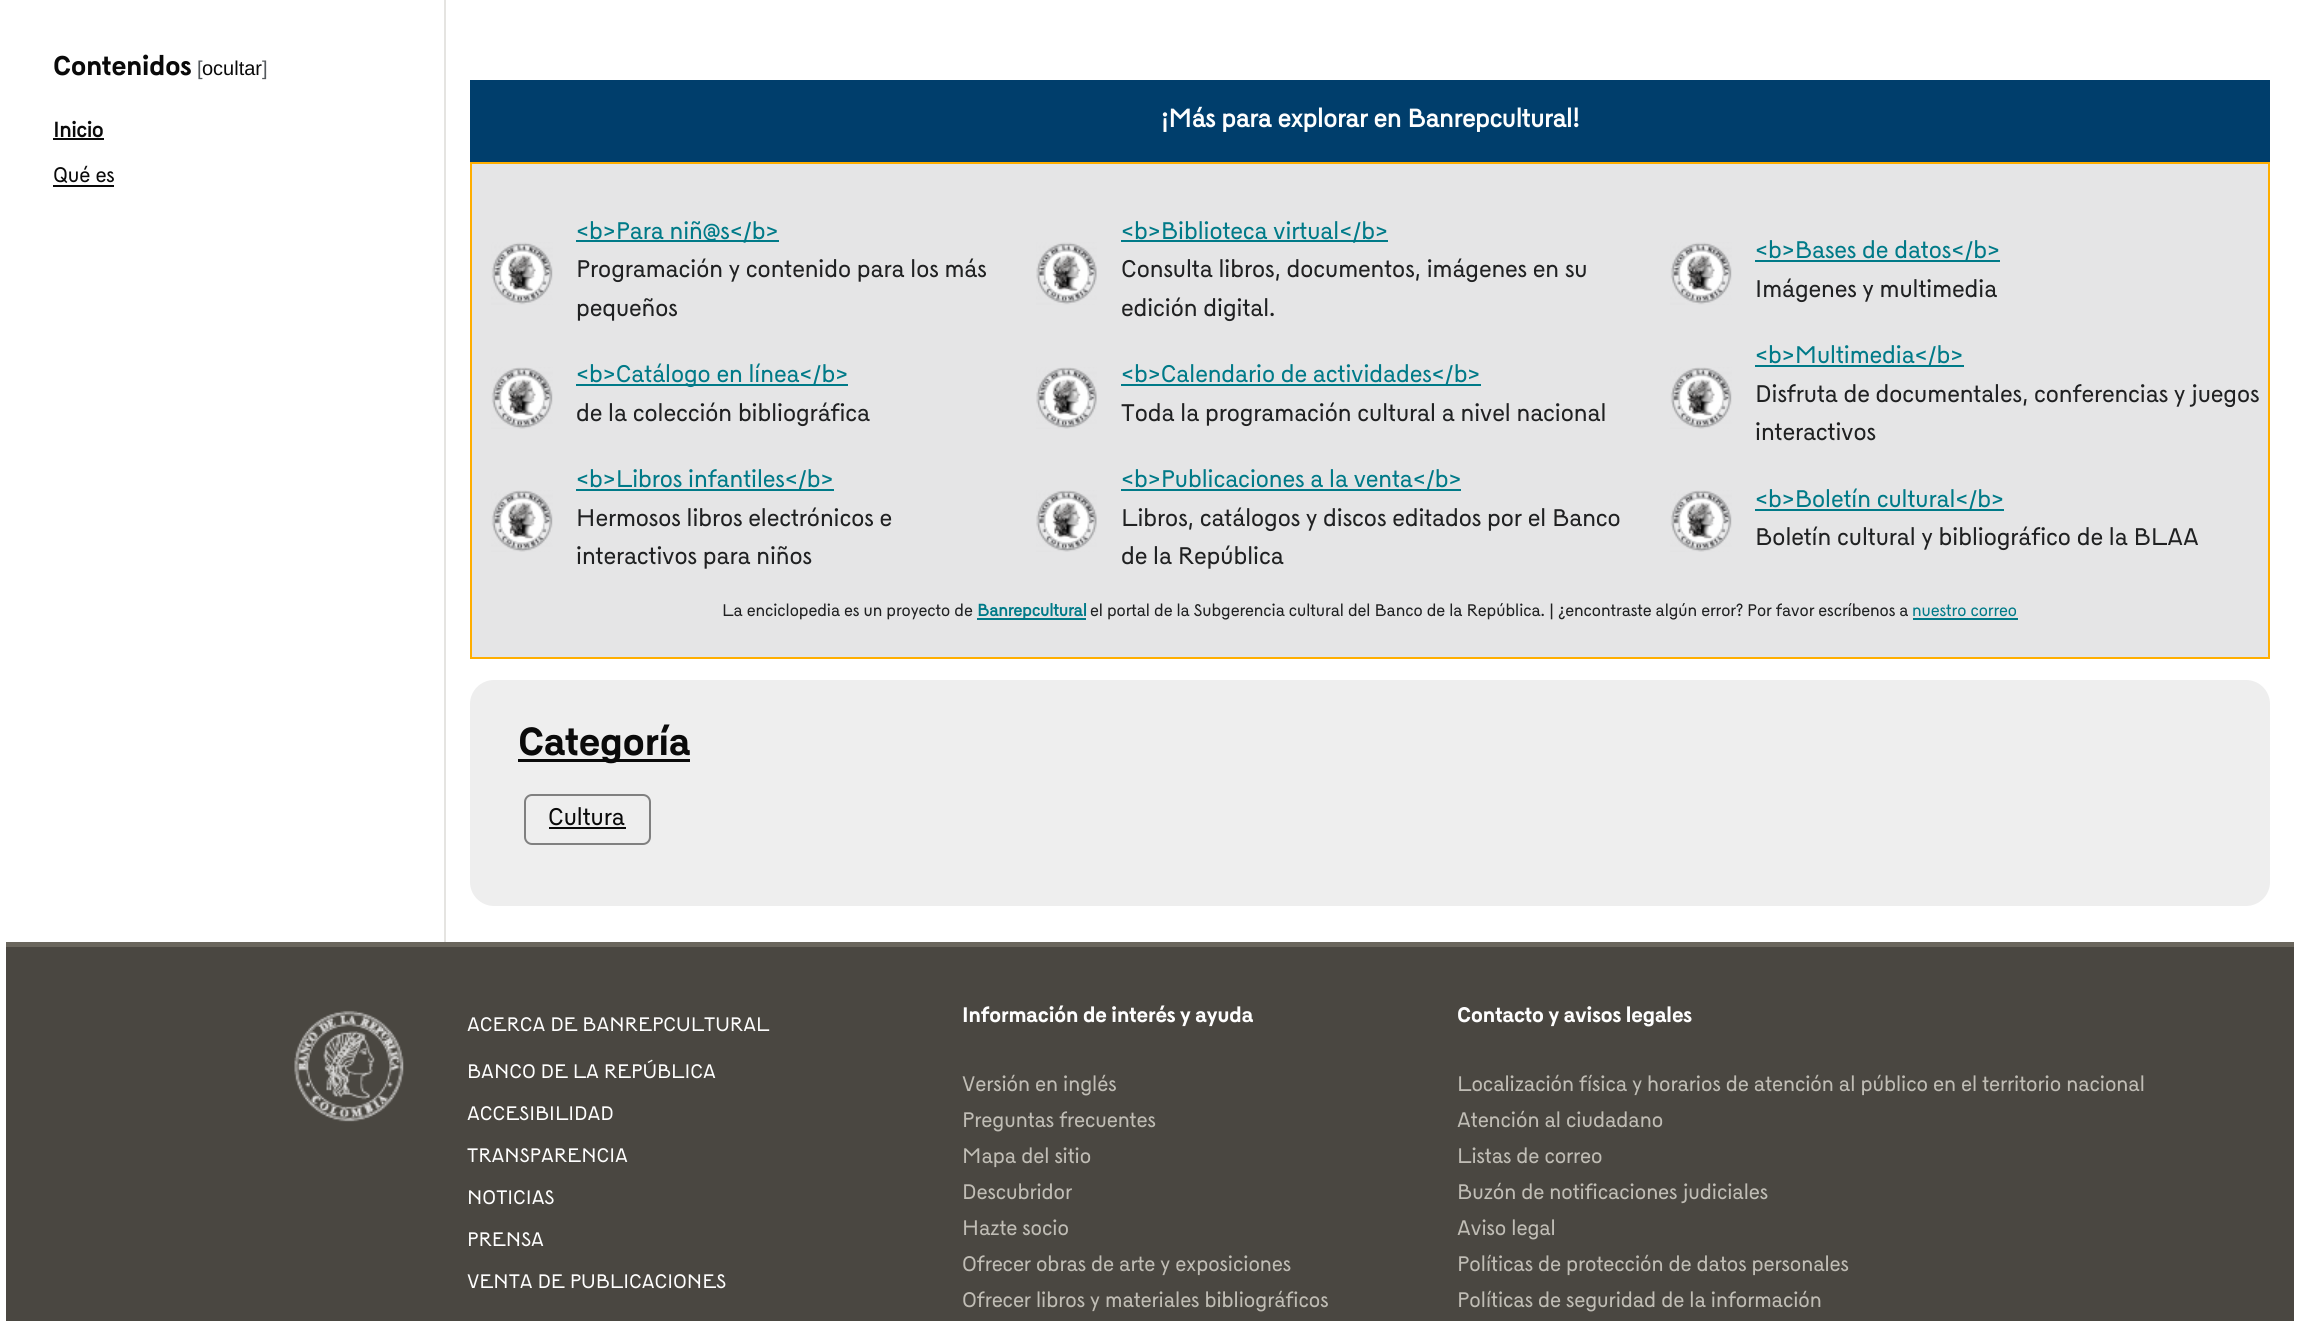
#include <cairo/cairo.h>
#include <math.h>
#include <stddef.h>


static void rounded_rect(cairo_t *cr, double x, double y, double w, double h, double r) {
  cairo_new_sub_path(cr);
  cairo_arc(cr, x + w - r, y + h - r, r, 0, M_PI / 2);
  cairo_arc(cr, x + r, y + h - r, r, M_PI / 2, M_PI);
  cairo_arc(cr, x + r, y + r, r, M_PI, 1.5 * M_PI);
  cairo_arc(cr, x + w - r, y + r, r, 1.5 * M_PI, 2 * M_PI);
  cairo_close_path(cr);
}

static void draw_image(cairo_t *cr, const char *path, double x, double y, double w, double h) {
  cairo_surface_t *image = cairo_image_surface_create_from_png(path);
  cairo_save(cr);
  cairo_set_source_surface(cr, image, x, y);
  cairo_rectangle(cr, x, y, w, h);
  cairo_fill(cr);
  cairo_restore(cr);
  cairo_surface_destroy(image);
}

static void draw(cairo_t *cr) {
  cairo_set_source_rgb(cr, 1, 1, 1);
  cairo_paint(cr);
  cairo_set_source_rgb(cr, 10 / 255.0, 10 / 255.0, 10 / 255.0);
  cairo_rectangle(cr, 53, 138, 51, 2);
  cairo_fill(cr);
  cairo_rectangle(cr, 53, 185, 61, 2);
  cairo_fill(cr);
  cairo_set_source_rgb(cr, 229 / 255.0, 228 / 255.0, 225 / 255.0);
  cairo_rectangle(cr, 444, 0, 2, 942);
  cairo_fill(cr);
  cairo_set_source_rgb(cr, 0, 62 / 255.0, 108 / 255.0);
  cairo_rectangle(cr, 470, 80, 1800, 82);
  cairo_fill(cr);
  cairo_set_source_rgb(cr, 229 / 255.0, 229 / 255.0, 230 / 255.0);
  cairo_rectangle(cr, 471, 163, 1798, 495);
  cairo_fill_preserve(cr);
  cairo_set_source_rgb(cr, 1, 174 / 255.0, 0);
  cairo_stroke(cr);
  draw_image(cr, "images/1.png", 491, 242, 62, 63);
  cairo_set_source_rgb(cr, 0, 122 / 255.0, 136 / 255.0);
  cairo_rectangle(cr, 576, 240, 203, 2);
  cairo_fill(cr);
  draw_image(cr, "images/2.png", 1036, 242, 61, 63);
  cairo_rectangle(cr, 1121, 240, 267, 2);
  cairo_fill(cr);
  draw_image(cr, "images/3.png", 1670, 242, 62, 63);
  cairo_rectangle(cr, 1755, 260, 245, 2);
  cairo_fill(cr);
  draw_image(cr, "images/4.png", 491, 367, 62, 62);
  cairo_rectangle(cr, 576, 384, 272, 2);
  cairo_fill(cr);
  draw_image(cr, "images/5.png", 1036, 367, 61, 62);
  cairo_rectangle(cr, 1121, 384, 360, 2);
  cairo_fill(cr);
  draw_image(cr, "images/6.png", 1670, 367, 62, 62);
  cairo_rectangle(cr, 1755, 365, 209, 2);
  cairo_fill(cr);
  draw_image(cr, "images/4.png", 491, 490, 62, 62);
  cairo_rectangle(cr, 576, 489, 258, 2);
  cairo_fill(cr);
  draw_image(cr, "images/5.png", 1036, 490, 61, 62);
  cairo_rectangle(cr, 1121, 489, 340, 2);
  cairo_fill(cr);
  draw_image(cr, "images/6.png", 1670, 490, 62, 62);
  cairo_rectangle(cr, 1755, 509, 249, 2);
  cairo_fill(cr);
  cairo_rectangle(cr, 977, 618, 109, 2);
  cairo_fill(cr);
  cairo_rectangle(cr, 1913, 618, 105, 2);
  cairo_fill(cr);
  cairo_set_source_rgb(cr, 238 / 255.0, 238 / 255.0, 238 / 255.0);
  rounded_rect(cr, 470, 680, 1800, 226, 24);
  cairo_fill(cr);
  cairo_set_source_rgb(cr, 10 / 255.0, 10 / 255.0, 10 / 255.0);
  cairo_rectangle(cr, 518, 759, 172, 3);
  cairo_fill(cr);
  rounded_rect(cr, 525, 795, 125, 49, 7);
  cairo_set_source_rgb(cr, 128 / 255.0, 128 / 255.0, 128 / 255.0);
  cairo_stroke(cr);
  cairo_set_source_rgb(cr, 10 / 255.0, 10 / 255.0, 10 / 255.0);
  cairo_rectangle(cr, 549, 827, 77, 2);
  cairo_fill(cr);
  cairo_set_source_rgb(cr, 74 / 255.0, 71 / 255.0, 65 / 255.0);
  cairo_rectangle(cr, 6, 947, 2288, 374);
  cairo_fill(cr);
  cairo_set_source_rgb(cr, 106 / 255.0, 102 / 255.0, 93 / 255.0);
  cairo_rectangle(cr, 6, 942, 2288, 5);
  cairo_fill(cr);
  draw_image(cr, "images/7.png", 294, 1010, 110, 112);
  cairo_select_font_face(cr, "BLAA", CAIRO_FONT_SLANT_NORMAL, CAIRO_FONT_WEIGHT_BOLD);
  cairo_set_font_size(cr, 27);
  cairo_set_source_rgb(cr, 10 / 255.0, 10 / 255.0, 10 / 255.0);
  cairo_move_to(cr, 53, 75);
  cairo_show_text(cr, "Contenidos");
  cairo_select_font_face(cr, "Liberation Sans", CAIRO_FONT_SLANT_NORMAL, CAIRO_FONT_WEIGHT_NORMAL);
  cairo_set_font_size(cr, 20);
  cairo_set_source_rgb(cr, 84 / 255.0, 89 / 255.0, 93 / 255.0);
  cairo_move_to(cr, 197, 75);
  cairo_show_text(cr, "[");
  cairo_set_source_rgb(cr, 10 / 255.0, 10 / 255.0, 10 / 255.0);
  cairo_move_to(cr, 202, 75);
  cairo_show_text(cr, "ocultar");
  cairo_set_source_rgb(cr, 84 / 255.0, 89 / 255.0, 93 / 255.0);
  cairo_move_to(cr, 262, 75);
  cairo_show_text(cr, "]");
  cairo_select_font_face(cr, "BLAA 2", CAIRO_FONT_SLANT_NORMAL, CAIRO_FONT_WEIGHT_BOLD);
  cairo_set_font_size(cr, 21);
  cairo_set_source_rgb(cr, 10 / 255.0, 10 / 255.0, 10 / 255.0);
  cairo_move_to(cr, 53, 137);
  cairo_show_text(cr, "Inicio");
  cairo_select_font_face(cr, "BLAA", CAIRO_FONT_SLANT_NORMAL, CAIRO_FONT_WEIGHT_NORMAL);
  cairo_move_to(cr, 53, 182);
  cairo_show_text(cr, "Qué es");
  cairo_select_font_face(cr, "BLAA 2", CAIRO_FONT_SLANT_NORMAL, CAIRO_FONT_WEIGHT_BOLD);
  cairo_set_font_size(cr, 25.25);
  cairo_set_source_rgb(cr, 254 / 255.0, 254 / 255.0, 254 / 255.0);
  cairo_move_to(cr, 1161, 127);
  cairo_show_text(cr, "¡Más para explorar en Banrepcultural!");
  cairo_select_font_face(cr, "BLAA", CAIRO_FONT_SLANT_NORMAL, CAIRO_FONT_WEIGHT_NORMAL);
  cairo_set_font_size(cr, 24);
  cairo_set_source_rgb(cr, 0, 122 / 255.0, 136 / 255.0);
  cairo_move_to(cr, 576, 239);
  cairo_show_text(cr, "<b>Para niñ@s</b>");
  cairo_set_source_rgb(cr, 32 / 255.0, 33 / 255.0, 34 / 255.0);
  cairo_move_to(cr, 576, 277);
  cairo_show_text(cr, "Programación y contenido para los más");
  cairo_move_to(cr, 576, 316);
  cairo_show_text(cr, "pequeños");
  cairo_set_source_rgb(cr, 0, 122 / 255.0, 136 / 255.0);
  cairo_move_to(cr, 1121, 239);
  cairo_show_text(cr, "<b>Biblioteca virtual</b>");
  cairo_set_source_rgb(cr, 32 / 255.0, 33 / 255.0, 34 / 255.0);
  cairo_move_to(cr, 1121, 277);
  cairo_show_text(cr, "Consulta libros, documentos, imágenes en su");
  cairo_move_to(cr, 1121, 316);
  cairo_show_text(cr, "edición digital.");
  cairo_set_source_rgb(cr, 0, 122 / 255.0, 136 / 255.0);
  cairo_move_to(cr, 1755, 258);
  cairo_show_text(cr, "<b>Bases de datos</b>");
  cairo_set_source_rgb(cr, 32 / 255.0, 33 / 255.0, 34 / 255.0);
  cairo_move_to(cr, 1755, 297);
  cairo_show_text(cr, "Imágenes y multimedia");
  cairo_set_source_rgb(cr, 0, 122 / 255.0, 136 / 255.0);
  cairo_move_to(cr, 576, 382);
  cairo_show_text(cr, "<b>Catálogo en línea</b>");
  cairo_set_source_rgb(cr, 32 / 255.0, 33 / 255.0, 34 / 255.0);
  cairo_move_to(cr, 576, 421);
  cairo_show_text(cr, "de la colección bibliográfica");
  cairo_set_source_rgb(cr, 0, 122 / 255.0, 136 / 255.0);
  cairo_move_to(cr, 1121, 382);
  cairo_show_text(cr, "<b>Calendario de actividades</b>");
  cairo_set_source_rgb(cr, 32 / 255.0, 33 / 255.0, 34 / 255.0);
  cairo_move_to(cr, 1121, 421);
  cairo_show_text(cr, "Toda la programación cultural a nivel nacional");
  cairo_set_source_rgb(cr, 0, 122 / 255.0, 136 / 255.0);
  cairo_move_to(cr, 1755, 363);
  cairo_show_text(cr, "<b>Multimedia</b>");
  cairo_set_source_rgb(cr, 32 / 255.0, 33 / 255.0, 34 / 255.0);
  cairo_move_to(cr, 1755, 402);
  cairo_show_text(cr, "Disfruta de documentales, conferencias y juegos");
  cairo_move_to(cr, 1755, 440);
  cairo_show_text(cr, "interactivos");
  cairo_set_source_rgb(cr, 0, 122 / 255.0, 136 / 255.0);
  cairo_move_to(cr, 576, 487);
  cairo_show_text(cr, "<b>Libros infantiles</b>");
  cairo_set_source_rgb(cr, 32 / 255.0, 33 / 255.0, 34 / 255.0);
  cairo_move_to(cr, 576, 526);
  cairo_show_text(cr, "Hermosos libros electrónicos e");
  cairo_move_to(cr, 576, 564);
  cairo_show_text(cr, "interactivos para niños");
  cairo_set_source_rgb(cr, 0, 122 / 255.0, 136 / 255.0);
  cairo_move_to(cr, 1121, 487);
  cairo_show_text(cr, "<b>Publicaciones a la venta</b>");
  cairo_set_source_rgb(cr, 32 / 255.0, 33 / 255.0, 34 / 255.0);
  cairo_move_to(cr, 1121, 526);
  cairo_show_text(cr, "Libros, catálogos y discos editados por el Banco");
  cairo_move_to(cr, 1121, 564);
  cairo_show_text(cr, "de la República");
  cairo_set_source_rgb(cr, 0, 122 / 255.0, 136 / 255.0);
  cairo_move_to(cr, 1755, 507);
  cairo_show_text(cr, "<b>Boletín cultural</b>");
  cairo_set_source_rgb(cr, 32 / 255.0, 33 / 255.0, 34 / 255.0);
  cairo_move_to(cr, 1755, 545);
  cairo_show_text(cr, "Boletín cultural y bibliográfico de la BLAA");
  cairo_set_font_size(cr, 16.8);
  cairo_move_to(cr, 722, 616);
  cairo_show_text(cr, "La enciclopedia es un proyecto de");
  cairo_select_font_face(cr, "BLAA 2", CAIRO_FONT_SLANT_NORMAL, CAIRO_FONT_WEIGHT_BOLD);
  cairo_set_source_rgb(cr, 0, 122 / 255.0, 136 / 255.0);
  cairo_move_to(cr, 977, 616);
  cairo_show_text(cr, "Banrepcultural");
  cairo_select_font_face(cr, "BLAA", CAIRO_FONT_SLANT_NORMAL, CAIRO_FONT_WEIGHT_NORMAL);
  cairo_set_source_rgb(cr, 32 / 255.0, 33 / 255.0, 34 / 255.0);
  cairo_move_to(cr, 1090, 616);
  cairo_show_text(cr, "el portal de la Subgerencia cultural del Banco de la República. | ¿encontraste algún error? Por favor escríbenos a");
  cairo_set_source_rgb(cr, 0, 122 / 255.0, 136 / 255.0);
  cairo_move_to(cr, 1912, 616);
  cairo_show_text(cr, "nuestro correo");
  cairo_select_font_face(cr, "BLAA", CAIRO_FONT_SLANT_NORMAL, CAIRO_FONT_WEIGHT_BOLD);
  cairo_set_font_size(cr, 39);
  cairo_set_source_rgb(cr, 10 / 255.0, 10 / 255.0, 10 / 255.0);
  cairo_move_to(cr, 518, 755);
  cairo_show_text(cr, "Categoría");
  cairo_select_font_face(cr, "BLAA", CAIRO_FONT_SLANT_NORMAL, CAIRO_FONT_WEIGHT_NORMAL);
  cairo_set_font_size(cr, 24);
  cairo_move_to(cr, 548, 825);
  cairo_show_text(cr, "Cultura");
  cairo_set_font_size(cr, 19.5);
  cairo_set_source_rgb(cr, 254 / 255.0, 254 / 255.0, 254 / 255.0);
  cairo_move_to(cr, 467, 1031);
  cairo_show_text(cr, "ACERCA DE BANREPCULTURAL");
  cairo_move_to(cr, 467, 1078);
  cairo_show_text(cr, "BANCO DE LA REPÚBLICA");
  cairo_move_to(cr, 467, 1120);
  cairo_show_text(cr, "ACCESIBILIDAD");
  cairo_move_to(cr, 467, 1162);
  cairo_show_text(cr, "TRANSPARENCIA");
  cairo_move_to(cr, 467, 1204);
  cairo_show_text(cr, "NOTICIAS");
  cairo_move_to(cr, 467, 1246);
  cairo_show_text(cr, "PRENSA");
  cairo_move_to(cr, 467, 1288);
  cairo_show_text(cr, "VENTA DE PUBLICACIONES");
  cairo_select_font_face(cr, "BLAA", CAIRO_FONT_SLANT_NORMAL, CAIRO_FONT_WEIGHT_BOLD);
  cairo_set_font_size(cr, 21);
  cairo_move_to(cr, 962, 1022);
  cairo_show_text(cr, "Información de interés y ayuda");
  cairo_select_font_face(cr, "BLAA", CAIRO_FONT_SLANT_NORMAL, CAIRO_FONT_WEIGHT_NORMAL);
  cairo_set_source_rgb(cr, 192 / 255.0, 189 / 255.0, 181 / 255.0);
  cairo_move_to(cr, 962, 1091);
  cairo_show_text(cr, "Versión en inglés");
  cairo_move_to(cr, 962, 1127);
  cairo_show_text(cr, "Preguntas frecuentes");
  cairo_move_to(cr, 962, 1163);
  cairo_show_text(cr, "Mapa del sitio");
  cairo_move_to(cr, 962, 1199);
  cairo_show_text(cr, "Descubridor");
  cairo_move_to(cr, 962, 1235);
  cairo_show_text(cr, "Hazte socio");
  cairo_move_to(cr, 962, 1271);
  cairo_show_text(cr, "Ofrecer obras de arte y exposiciones");
  cairo_move_to(cr, 962, 1307);
  cairo_show_text(cr, "Ofrecer libros y materiales bibliográficos");
  cairo_select_font_face(cr, "BLAA", CAIRO_FONT_SLANT_NORMAL, CAIRO_FONT_WEIGHT_BOLD);
  cairo_set_source_rgb(cr, 254 / 255.0, 254 / 255.0, 254 / 255.0);
  cairo_move_to(cr, 1457, 1022);
  cairo_show_text(cr, "Contacto y avisos legales");
  cairo_select_font_face(cr, "BLAA", CAIRO_FONT_SLANT_NORMAL, CAIRO_FONT_WEIGHT_NORMAL);
  cairo_set_source_rgb(cr, 192 / 255.0, 189 / 255.0, 181 / 255.0);
  cairo_move_to(cr, 1457, 1091);
  cairo_show_text(cr, "Localización física y horarios de atención al público en el territorio nacional");
  cairo_move_to(cr, 1457, 1127);
  cairo_show_text(cr, "Atención al ciudadano");
  cairo_move_to(cr, 1457, 1163);
  cairo_show_text(cr, "Listas de correo");
  cairo_move_to(cr, 1457, 1199);
  cairo_show_text(cr, "Buzón de notificaciones judiciales");
  cairo_move_to(cr, 1457, 1235);
  cairo_show_text(cr, "Aviso legal");
  cairo_move_to(cr, 1457, 1271);
  cairo_show_text(cr, "Políticas de protección de datos personales");
  cairo_move_to(cr, 1457, 1307);
  cairo_show_text(cr, "Políticas de seguridad de la información");
}

int main(void) {
  cairo_surface_t *surface = cairo_image_surface_create(CAIRO_FORMAT_RGB24, 2299, 1321);
  cairo_t *cr = cairo_create(surface);
  cairo_font_options_t *options = cairo_font_options_create();
  cairo_font_options_set_hint_metrics(options, CAIRO_HINT_METRICS_OFF);
  cairo_font_options_set_hint_style(options, CAIRO_HINT_STYLE_NONE);
  cairo_set_font_options(cr, options);
  cairo_set_miter_limit(cr, 4);
  draw(cr);
  cairo_surface_write_to_png(surface, "out.png");
  cairo_font_options_destroy(options);
  cairo_destroy(cr);
  cairo_surface_destroy(surface);
  return 0;
}
